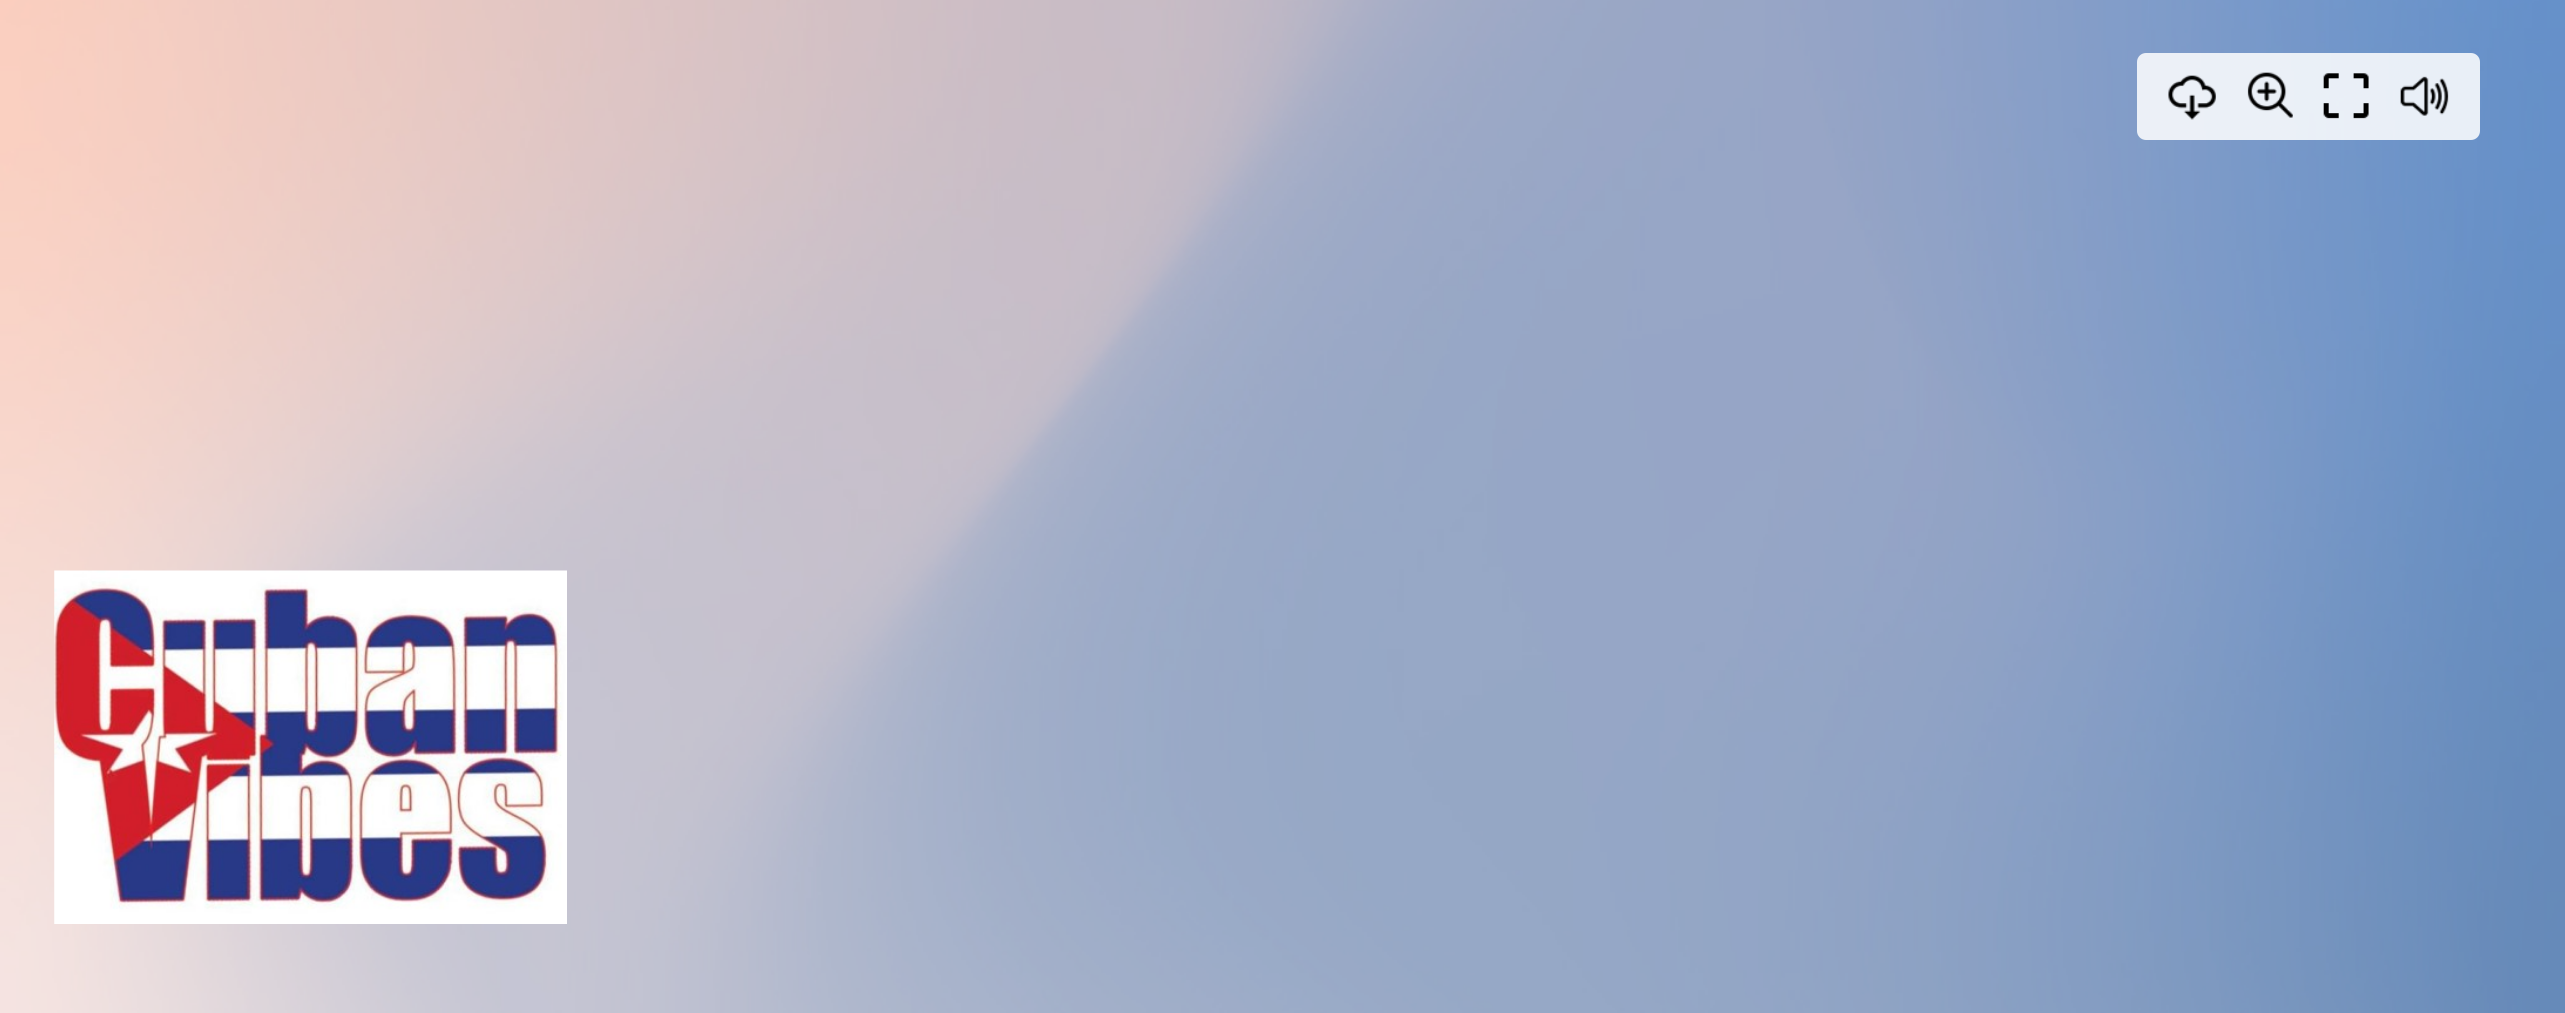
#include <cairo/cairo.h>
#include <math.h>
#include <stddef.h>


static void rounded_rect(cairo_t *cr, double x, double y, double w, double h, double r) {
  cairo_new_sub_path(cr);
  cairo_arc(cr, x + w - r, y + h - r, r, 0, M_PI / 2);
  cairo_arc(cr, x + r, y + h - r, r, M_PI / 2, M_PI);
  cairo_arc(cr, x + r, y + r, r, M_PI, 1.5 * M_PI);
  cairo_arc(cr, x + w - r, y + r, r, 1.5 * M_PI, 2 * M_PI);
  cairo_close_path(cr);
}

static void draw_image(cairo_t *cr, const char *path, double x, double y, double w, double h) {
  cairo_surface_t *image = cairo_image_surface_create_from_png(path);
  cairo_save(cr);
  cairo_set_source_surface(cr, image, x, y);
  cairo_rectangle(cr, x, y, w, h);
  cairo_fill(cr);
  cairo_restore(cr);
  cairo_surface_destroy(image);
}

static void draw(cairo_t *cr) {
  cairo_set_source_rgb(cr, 1, 1, 1);
  cairo_paint(cr);
  draw_image(cr, "images/1.png", 0, 0, 2565, 1013);
  cairo_set_source_rgba(cr, 1, 1, 1, 0.85);
  rounded_rect(cr, 2137, 53, 343, 87, 9);
  cairo_fill(cr);
  draw_image(cr, "images/2.png", 2168, 75, 48, 45);
  draw_image(cr, "images/3.png", 2247, 72, 46, 46);
  draw_image(cr, "images/4.png", 2323, 73, 46, 46);
  draw_image(cr, "images/5.png", 2400, 76, 49, 40);
  draw_image(cr, "images/6.png", 54, 570, 513, 354);
}

int main(void) {
  cairo_surface_t *surface = cairo_image_surface_create(CAIRO_FORMAT_RGB24, 2565, 1013);
  cairo_t *cr = cairo_create(surface);
  cairo_font_options_t *options = cairo_font_options_create();
  cairo_font_options_set_hint_metrics(options, CAIRO_HINT_METRICS_OFF);
  cairo_font_options_set_hint_style(options, CAIRO_HINT_STYLE_NONE);
  cairo_set_font_options(cr, options);
  cairo_set_miter_limit(cr, 4);
  draw(cr);
  cairo_surface_write_to_png(surface, "out.png");
  cairo_font_options_destroy(options);
  cairo_destroy(cr);
  cairo_surface_destroy(surface);
  return 0;
}
